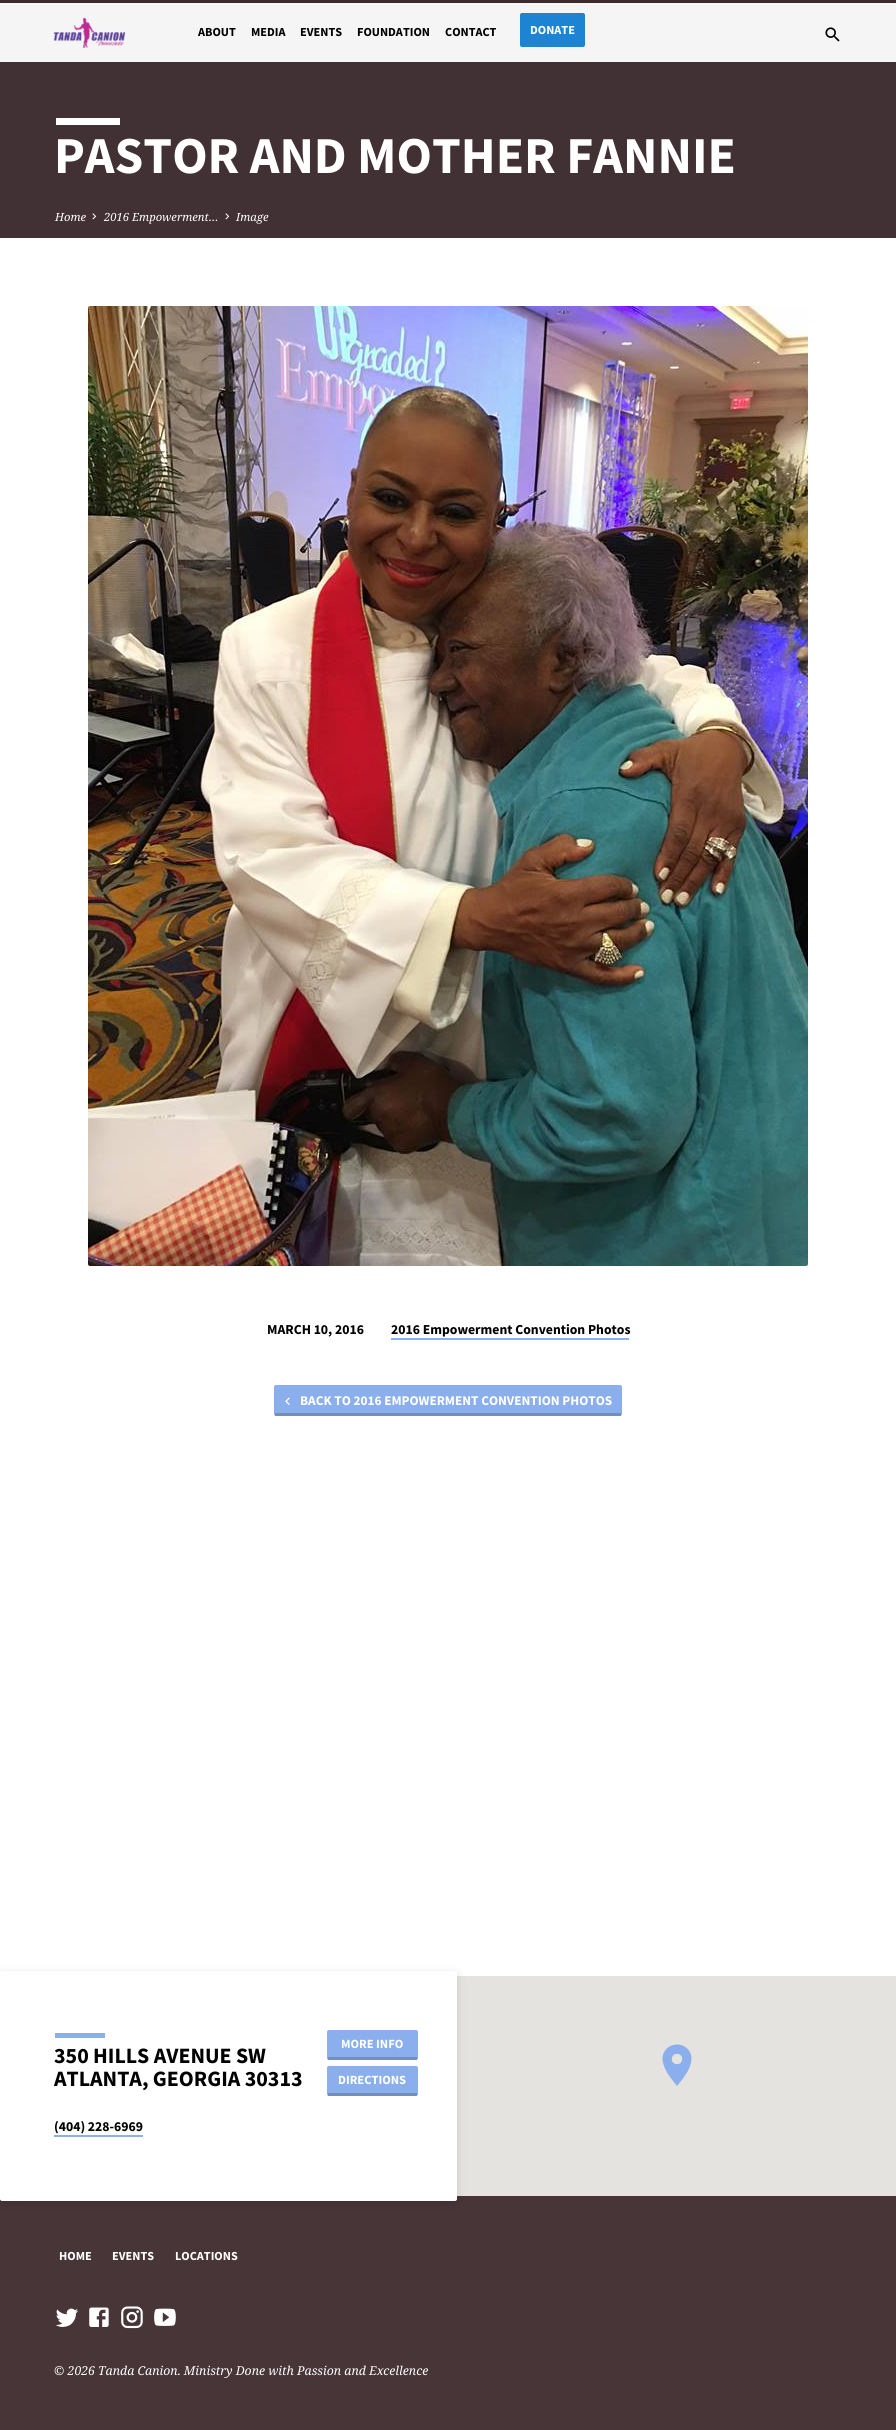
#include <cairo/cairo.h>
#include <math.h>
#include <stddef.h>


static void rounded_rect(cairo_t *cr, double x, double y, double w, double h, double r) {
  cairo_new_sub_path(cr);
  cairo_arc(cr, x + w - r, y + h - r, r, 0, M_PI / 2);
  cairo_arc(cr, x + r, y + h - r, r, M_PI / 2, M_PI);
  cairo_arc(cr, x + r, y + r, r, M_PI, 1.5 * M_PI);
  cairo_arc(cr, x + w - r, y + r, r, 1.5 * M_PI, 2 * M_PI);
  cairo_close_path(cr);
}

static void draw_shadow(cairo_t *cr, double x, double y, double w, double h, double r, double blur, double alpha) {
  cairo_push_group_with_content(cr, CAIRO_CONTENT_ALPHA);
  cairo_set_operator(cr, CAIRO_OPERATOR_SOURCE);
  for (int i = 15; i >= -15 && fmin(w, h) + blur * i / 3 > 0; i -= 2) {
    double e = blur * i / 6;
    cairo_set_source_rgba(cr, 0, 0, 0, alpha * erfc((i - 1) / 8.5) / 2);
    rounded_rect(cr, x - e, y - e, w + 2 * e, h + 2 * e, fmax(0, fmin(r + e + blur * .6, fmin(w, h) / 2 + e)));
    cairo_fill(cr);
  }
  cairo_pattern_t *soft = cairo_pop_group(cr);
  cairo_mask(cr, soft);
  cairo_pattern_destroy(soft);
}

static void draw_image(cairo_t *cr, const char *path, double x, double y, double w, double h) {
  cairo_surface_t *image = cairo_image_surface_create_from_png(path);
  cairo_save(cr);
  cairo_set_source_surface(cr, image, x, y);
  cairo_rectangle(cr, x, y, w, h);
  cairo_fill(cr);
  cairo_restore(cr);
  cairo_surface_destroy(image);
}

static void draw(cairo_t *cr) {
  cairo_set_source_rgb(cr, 1, 1, 1);
  cairo_paint(cr);
  cairo_set_source_rgb(cr, 61 / 255.0, 42 / 255.0, 45 / 255.0);
  cairo_rectangle(cr, 0, 0, 896, 3);
  cairo_fill(cr);
  cairo_set_source_rgb(cr, 246 / 255.0, 245 / 255.0, 245 / 255.0);
  cairo_rectangle(cr, 0, 3, 896, 59);
  cairo_fill(cr);
  draw_image(cr, "images/1.png", 53, 17, 73, 31);
  cairo_set_source_rgb(cr, 29 / 255.0, 132 / 255.0, 211 / 255.0);
  rounded_rect(cr, 520, 13, 65, 34, 2);
  cairo_fill(cr);
  draw_image(cr, "images/2.png", 825, 27, 15, 15);
  cairo_set_source_rgb(cr, 66 / 255.0, 49 / 255.0, 52 / 255.0);
  cairo_rectangle(cr, 0, 62, 896, 176);
  cairo_fill(cr);
  cairo_set_source_rgb(cr, 1, 1, 1);
  cairo_rectangle(cr, 56, 118, 64, 7);
  cairo_fill(cr);
  draw_image(cr, "images/3.png", 92, 213, 5, 7);
  draw_image(cr, "images/3.png", 225, 213, 5, 7);
  draw_image(cr, "images/4.png", 88, 306, 720, 960);
  cairo_set_source_rgb(cr, 139 / 255.0, 175 / 255.0, 237 / 255.0);
  cairo_rectangle(cr, 391, 1338, 238, 2);
  cairo_fill(cr);
  rounded_rect(cr, 274, 1385, 348, 31, 2);
  cairo_fill(cr);
  cairo_set_source_rgba(cr, 50 / 255.0, 50 / 255.0, 50 / 255.0, 0.25);
  cairo_rectangle(cr, 275, 1413, 346, 3);
  cairo_fill(cr);
  draw_image(cr, "images/5.png", 285, 1397, 5, 8);
  cairo_set_source_rgb(cr, 229 / 255.0, 227 / 255.0, 223 / 255.0);
  cairo_rectangle(cr, 457, 1976, 439, 220);
  cairo_fill(cr);
  cairo_set_source_rgb(cr, 71 / 255.0, 53 / 255.0, 56 / 255.0);
  cairo_rectangle(cr, 0, 2196, 896, 234);
  cairo_fill(cr);
  cairo_set_source_rgb(cr, 0, 0, 0);
  draw_shadow(cr, 0, 1973, 457, 230, 2, 5, 0.12);
  cairo_set_source_rgb(cr, 1, 1, 1);
  rounded_rect(cr, 0, 1971, 457, 230, 2);
  cairo_fill(cr);
  draw_image(cr, "images/6.png", 662, 2044, 30, 42);
  cairo_set_source_rgb(cr, 139 / 255.0, 175 / 255.0, 237 / 255.0);
  cairo_rectangle(cr, 55, 2033, 50, 5);
  cairo_fill(cr);
  rounded_rect(cr, 327, 2030, 91, 30, 2);
  cairo_fill(cr);
  cairo_set_source_rgba(cr, 50 / 255.0, 50 / 255.0, 50 / 255.0, 0.25);
  cairo_rectangle(cr, 328, 2057, 89, 3);
  cairo_fill(cr);
  cairo_set_source_rgb(cr, 139 / 255.0, 175 / 255.0, 237 / 255.0);
  rounded_rect(cr, 327, 2066, 91, 30, 2);
  cairo_fill(cr);
  cairo_set_source_rgba(cr, 50 / 255.0, 50 / 255.0, 50 / 255.0, 0.25);
  cairo_rectangle(cr, 328, 2093, 89, 3);
  cairo_fill(cr);
  cairo_set_source_rgb(cr, 139 / 255.0, 175 / 255.0, 237 / 255.0);
  cairo_rectangle(cr, 54, 2135, 89, 2);
  cairo_fill(cr);
  draw_image(cr, "images/7.png", 56, 2308, 23, 19);
  draw_image(cr, "images/8.png", 89, 2307, 20, 20);
  draw_image(cr, "images/9.png", 121, 2306, 22, 23);
  draw_image(cr, "images/10.png", 154, 2308, 22, 18);
  cairo_select_font_face(cr, "Source Sans Pro", CAIRO_FONT_SLANT_NORMAL, CAIRO_FONT_WEIGHT_BOLD);
  cairo_set_font_size(cr, 12.25);
  cairo_set_source_rgb(cr, 0, 0, 0);
  cairo_move_to(cr, 198, 36);
  cairo_show_text(cr, "ABOUT");
  cairo_move_to(cr, 251, 36);
  cairo_show_text(cr, "MEDIA");
  cairo_move_to(cr, 300, 36);
  cairo_show_text(cr, "EVENTS");
  cairo_move_to(cr, 357, 36);
  cairo_show_text(cr, "FOUNDATION");
  cairo_move_to(cr, 445, 36);
  cairo_show_text(cr, "CONTACT");
  cairo_set_source_rgb(cr, 1, 1, 1);
  cairo_move_to(cr, 530, 34);
  cairo_show_text(cr, "DONATE");
  cairo_set_font_size(cr, 51.8);
  cairo_move_to(cr, 54, 173);
  cairo_show_text(cr, "PASTOR AND MOTHER FANNIE");
  cairo_select_font_face(cr, "Noto Serif", CAIRO_FONT_SLANT_ITALIC, CAIRO_FONT_WEIGHT_NORMAL);
  cairo_set_font_size(cr, 11.25);
  cairo_move_to(cr, 55, 221);
  cairo_show_text(cr, "Home");
  cairo_move_to(cr, 104, 221);
  cairo_show_text(cr, "2016 Empowerment…");
  cairo_move_to(cr, 236, 221);
  cairo_show_text(cr, "Image");
  cairo_select_font_face(cr, "Source Sans Pro", CAIRO_FONT_SLANT_NORMAL, CAIRO_FONT_WEIGHT_BOLD);
  cairo_set_font_size(cr, 13.7);
  cairo_set_source_rgb(cr, 0, 0, 0);
  cairo_move_to(cr, 267, 1334);
  cairo_show_text(cr, "MARCH 10, 2016");
  cairo_move_to(cr, 391, 1334);
  cairo_show_text(cr, "2016 Empowerment Convention Photos");
  cairo_set_font_size(cr, 13.3);
  cairo_set_source_rgb(cr, 1, 1, 1);
  cairo_move_to(cr, 300, 1405);
  cairo_show_text(cr, "BACK TO 2016 EMPOWERMENT CONVENTION PHOTOS");
  cairo_set_font_size(cr, 21.9);
  cairo_set_source_rgb(cr, 0, 0, 0);
  cairo_move_to(cr, 54, 2063);
  cairo_show_text(cr, "350 HILLS AVENUE SW");
  cairo_move_to(cr, 54, 2086);
  cairo_show_text(cr, "ATLANTA, GEORGIA 30313");
  cairo_set_font_size(cr, 12.5);
  cairo_set_source_rgb(cr, 1, 1, 1);
  cairo_move_to(cr, 341, 2048);
  cairo_show_text(cr, "MORE INFO");
  cairo_move_to(cr, 338, 2084);
  cairo_show_text(cr, "DIRECTIONS");
  cairo_set_font_size(cr, 13.7);
  cairo_set_source_rgb(cr, 0, 0, 0);
  cairo_move_to(cr, 54, 2131);
  cairo_show_text(cr, "(404) 228-6969");
  cairo_set_font_size(cr, 12.25);
  cairo_set_source_rgb(cr, 1, 1, 1);
  cairo_move_to(cr, 59, 2260);
  cairo_show_text(cr, "HOME");
  cairo_move_to(cr, 112, 2260);
  cairo_show_text(cr, "EVENTS");
  cairo_move_to(cr, 175, 2260);
  cairo_show_text(cr, "LOCATIONS");
  cairo_select_font_face(cr, "Noto Serif", CAIRO_FONT_SLANT_ITALIC, CAIRO_FONT_WEIGHT_NORMAL);
  cairo_move_to(cr, 54, 2375);
  cairo_show_text(cr, "© 2026 Tanda Canion. Ministry Done with Passion and Excellence");
}

int main(void) {
  cairo_surface_t *surface = cairo_image_surface_create(CAIRO_FORMAT_RGB24, 896, 2430);
  cairo_t *cr = cairo_create(surface);
  cairo_font_options_t *options = cairo_font_options_create();
  cairo_font_options_set_hint_metrics(options, CAIRO_HINT_METRICS_OFF);
  cairo_font_options_set_hint_style(options, CAIRO_HINT_STYLE_NONE);
  cairo_set_font_options(cr, options);
  cairo_set_miter_limit(cr, 4);
  draw(cr);
  cairo_surface_write_to_png(surface, "out.png");
  cairo_font_options_destroy(options);
  cairo_destroy(cr);
  cairo_surface_destroy(surface);
  return 0;
}
